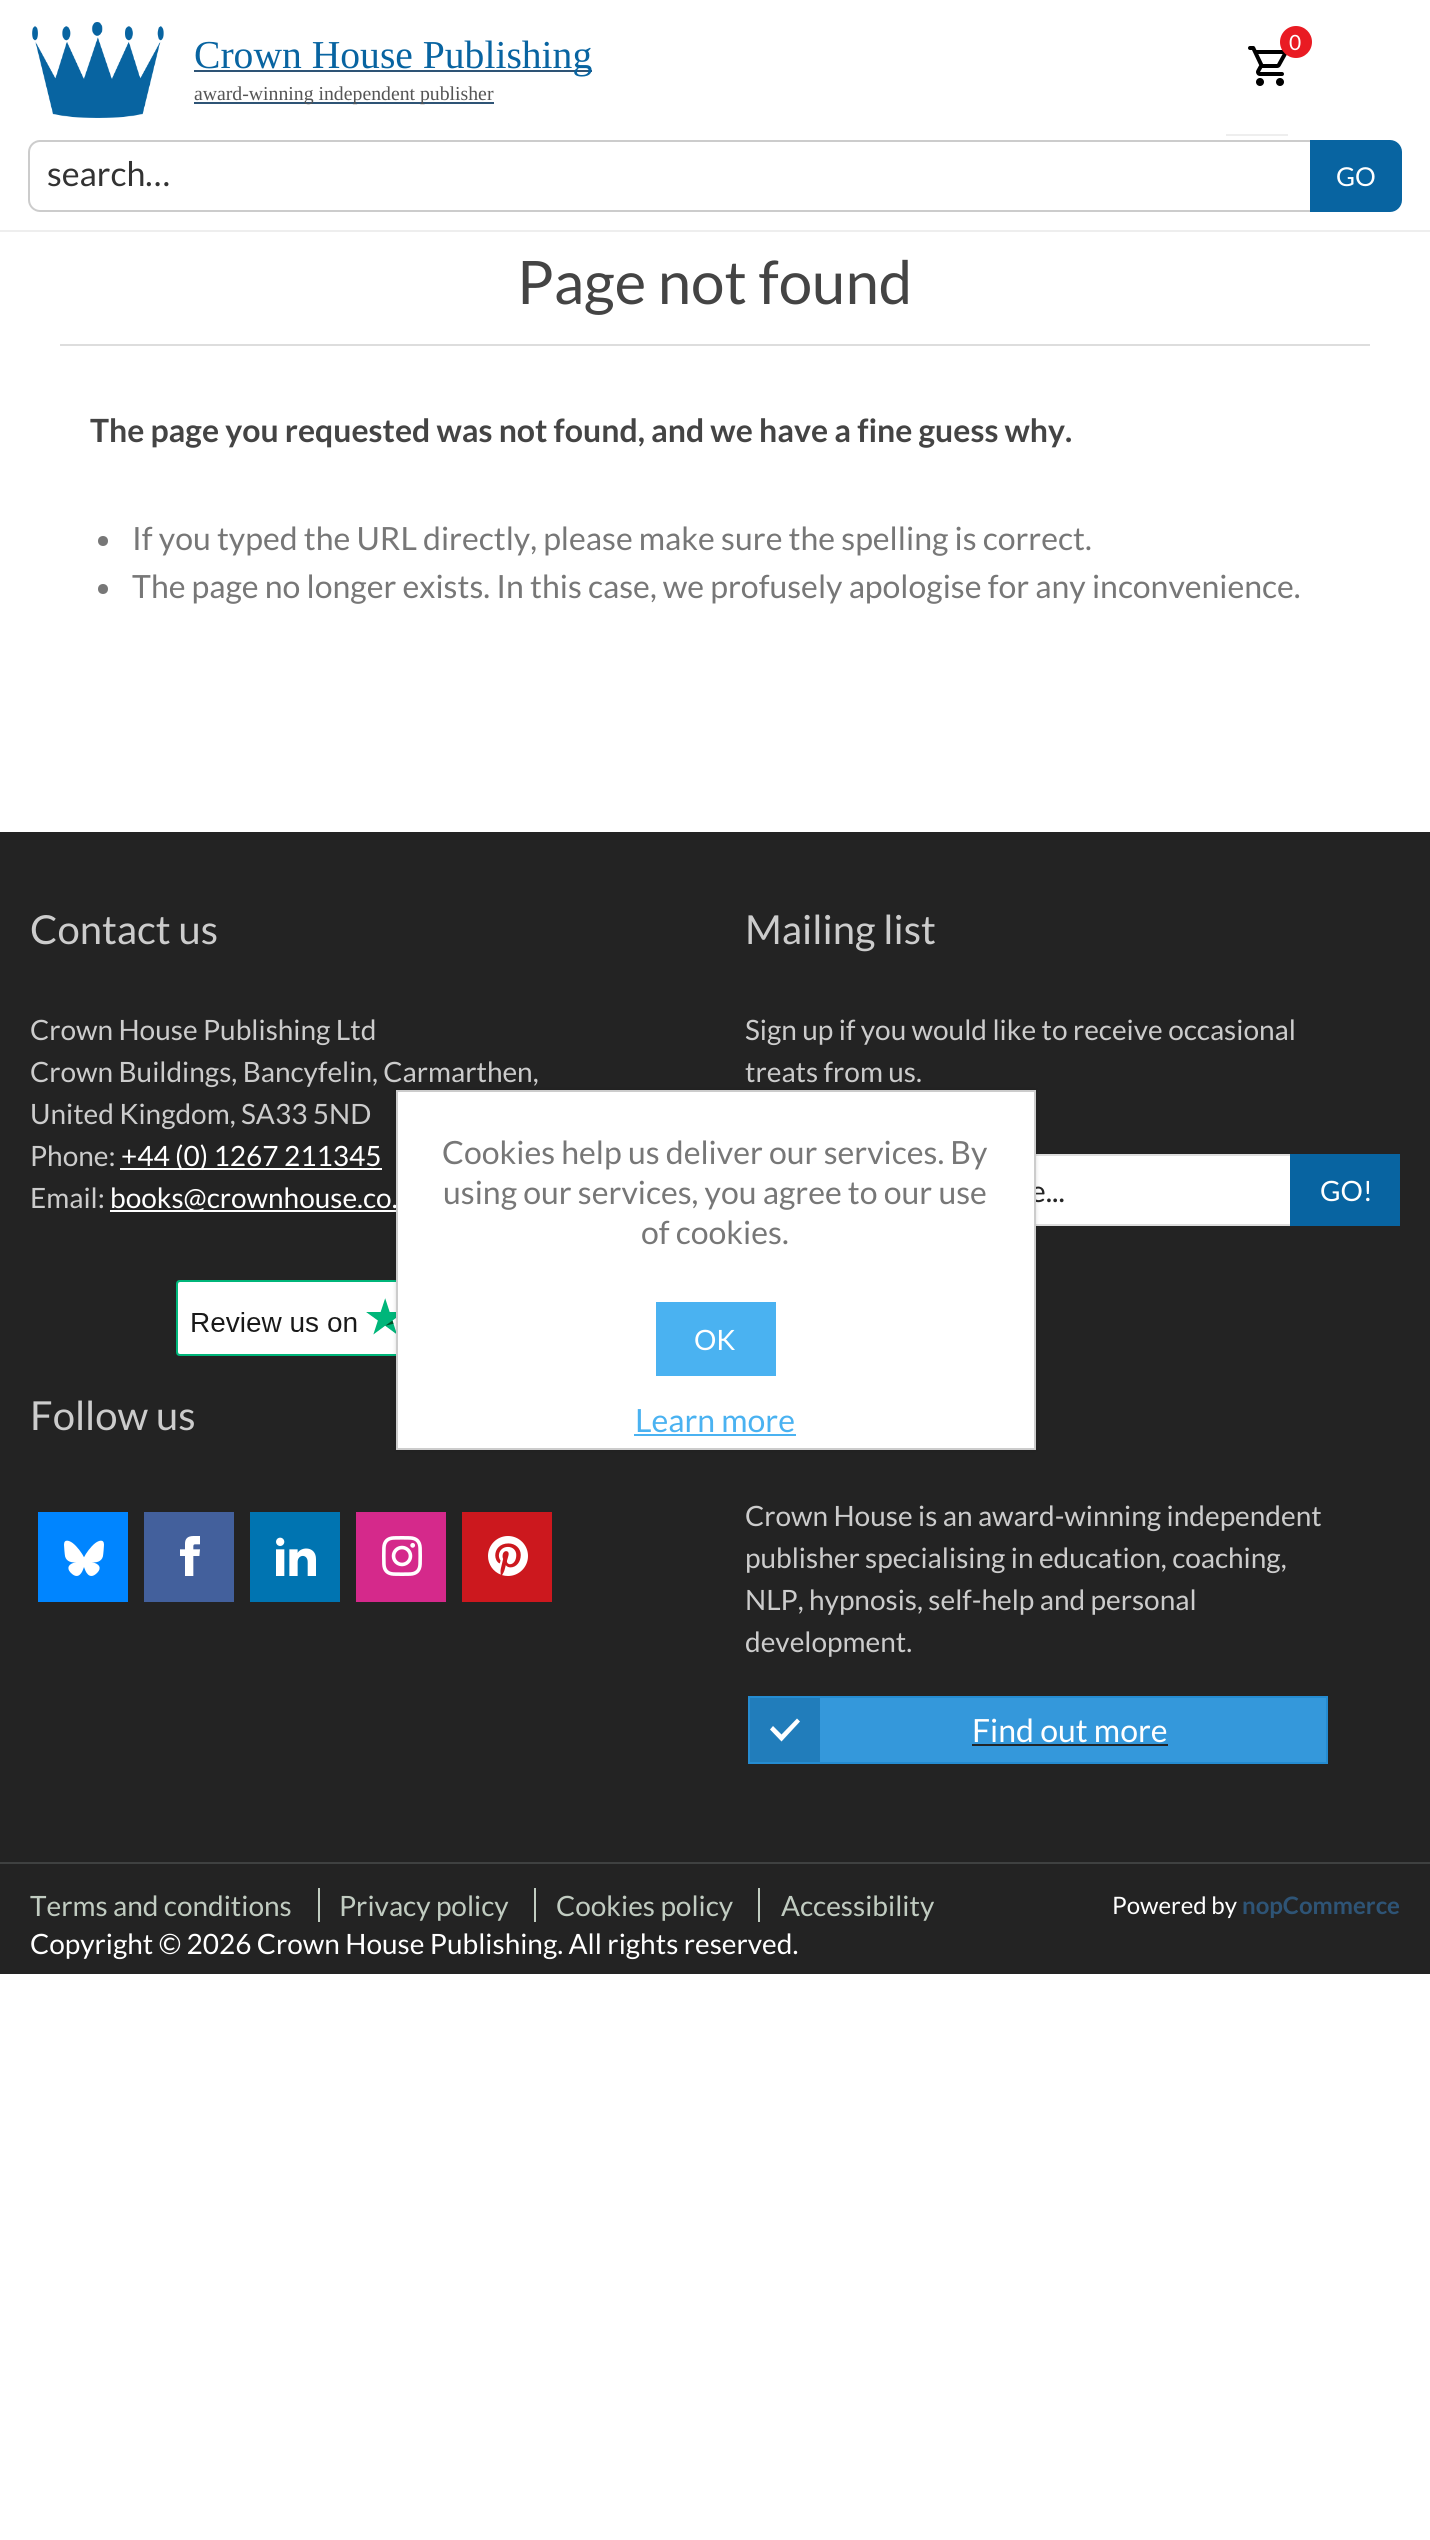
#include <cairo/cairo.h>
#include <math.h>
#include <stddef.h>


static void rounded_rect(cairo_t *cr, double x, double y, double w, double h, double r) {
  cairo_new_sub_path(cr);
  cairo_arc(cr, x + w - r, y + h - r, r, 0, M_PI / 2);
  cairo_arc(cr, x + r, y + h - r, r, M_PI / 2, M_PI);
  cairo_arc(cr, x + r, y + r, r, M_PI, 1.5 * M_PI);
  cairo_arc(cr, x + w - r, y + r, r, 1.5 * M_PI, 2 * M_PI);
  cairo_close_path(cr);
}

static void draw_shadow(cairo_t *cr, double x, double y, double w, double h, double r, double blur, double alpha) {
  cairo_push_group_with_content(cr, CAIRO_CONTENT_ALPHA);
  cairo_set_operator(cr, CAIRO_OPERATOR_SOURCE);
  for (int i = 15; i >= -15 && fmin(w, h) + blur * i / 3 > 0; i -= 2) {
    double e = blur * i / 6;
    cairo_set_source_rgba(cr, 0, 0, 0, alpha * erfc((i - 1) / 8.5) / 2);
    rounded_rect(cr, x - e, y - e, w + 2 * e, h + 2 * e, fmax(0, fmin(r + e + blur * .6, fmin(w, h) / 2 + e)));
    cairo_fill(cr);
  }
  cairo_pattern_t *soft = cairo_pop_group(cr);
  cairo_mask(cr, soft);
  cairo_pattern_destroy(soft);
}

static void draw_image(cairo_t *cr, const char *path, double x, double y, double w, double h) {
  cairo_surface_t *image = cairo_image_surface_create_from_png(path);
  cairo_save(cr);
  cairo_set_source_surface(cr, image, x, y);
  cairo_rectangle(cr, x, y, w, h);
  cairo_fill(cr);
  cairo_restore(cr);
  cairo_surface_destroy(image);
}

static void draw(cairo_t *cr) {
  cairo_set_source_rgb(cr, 1, 1, 1);
  cairo_paint(cr);
  cairo_set_source_rgb(cr, 238 / 255.0, 238 / 255.0, 238 / 255.0);
  cairo_rectangle(cr, 0, 230, 1430, 2);
  cairo_fill(cr);
  cairo_rectangle(cr, 1226, 134, 62, 2);
  cairo_fill(cr);
  draw_image(cr, "images/1.png", 1248, 46, 39, 40);
  cairo_set_source_rgb(cr, 233 / 255.0, 27 / 255.0, 35 / 255.0);
  cairo_arc(cr, 1296, 42, 16, 0, 2 * M_PI);
  cairo_fill(cr);
  cairo_new_path(cr);
  cairo_move_to(cr, 40, 141);
  cairo_line_to(cr, 1315, 141);
  cairo_line_to(cr, 1315, 211);
  cairo_line_to(cr, 40, 211);
  cairo_curve_to(cr, 34, 211, 29, 206, 29, 200);
  cairo_line_to(cr, 29, 152);
  cairo_curve_to(cr, 29, 146, 34, 141, 40, 141);
  cairo_close_path(cr);
  cairo_set_source_rgb(cr, 204 / 255.0, 204 / 255.0, 204 / 255.0);
  cairo_stroke(cr);
  cairo_set_source_rgb(cr, 8 / 255.0, 100 / 255.0, 161 / 255.0);
  cairo_new_path(cr);
  cairo_move_to(cr, 1311, 141);
  cairo_line_to(cr, 1390, 141);
  cairo_curve_to(cr, 1396, 141, 1401, 146, 1401, 152);
  cairo_line_to(cr, 1401, 200);
  cairo_curve_to(cr, 1401, 206, 1396, 211, 1390, 211);
  cairo_line_to(cr, 1311, 211);
  cairo_close_path(cr);
  cairo_fill_preserve(cr);
  cairo_stroke(cr);
  draw_image(cr, "images/2.png", 32, 22, 132, 96);
  cairo_set_source_rgb(cr, 46 / 255.0, 84 / 255.0, 118 / 255.0);
  cairo_rectangle(cr, 194, 70, 398, 2);
  cairo_fill(cr);
  cairo_rectangle(cr, 194, 102, 300, 2);
  cairo_fill(cr);
  cairo_set_source_rgb(cr, 221 / 255.0, 221 / 255.0, 221 / 255.0);
  cairo_rectangle(cr, 60, 344, 1310, 2);
  cairo_fill(cr);
  cairo_set_source_rgb(cr, 119 / 255.0, 119 / 255.0, 119 / 255.0);
  cairo_arc(cr, 103, 541, 5, 0, 2 * M_PI);
  cairo_fill(cr);
  cairo_arc(cr, 103, 589, 5, 0, 2 * M_PI);
  cairo_fill(cr);
  cairo_set_source_rgb(cr, 35 / 255.0, 35 / 255.0, 35 / 255.0);
  cairo_rectangle(cr, 0, 832, 1430, 1142);
  cairo_fill(cr);
  cairo_set_source_rgb(cr, 63 / 255.0, 65 / 255.0, 65 / 255.0);
  cairo_rectangle(cr, 0, 1862, 1430, 2);
  cairo_fill(cr);
  cairo_set_source_rgb(cr, 1, 1, 1);
  cairo_rectangle(cr, 120, 1168, 262, 2);
  cairo_fill(cr);
  cairo_rectangle(cr, 110, 1210, 286, 2);
  cairo_fill(cr);
  draw_image(cr, "images/3.png", 176, 1280, 220, 76);
  cairo_rectangle(cr, 1036, 1156, 254, 68);
  cairo_fill(cr);
  cairo_rectangle(cr, 747, 1155, 544, 70);
  cairo_set_source_rgb(cr, 221 / 255.0, 221 / 255.0, 221 / 255.0);
  cairo_stroke(cr);
  cairo_set_source_rgb(cr, 8 / 255.0, 100 / 255.0, 161 / 255.0);
  cairo_rectangle(cr, 1290, 1154, 110, 72);
  cairo_fill(cr);
  cairo_set_source_rgb(cr, 0, 133 / 255.0, 1);
  cairo_rectangle(cr, 38, 1512, 90, 90);
  cairo_fill(cr);
  draw_image(cr, "images/4.png", 64, 1540, 40, 36);
  cairo_set_source_rgb(cr, 67 / 255.0, 96 / 255.0, 156 / 255.0);
  cairo_rectangle(cr, 144, 1512, 90, 90);
  cairo_fill(cr);
  draw_image(cr, "images/5.png", 180, 1536, 20, 40);
  cairo_set_source_rgb(cr, 0, 116 / 255.0, 177 / 255.0);
  cairo_rectangle(cr, 250, 1512, 90, 90);
  cairo_fill(cr);
  draw_image(cr, "images/6.png", 276, 1537, 40, 39);
  cairo_set_source_rgb(cr, 213 / 255.0, 41 / 255.0, 139 / 255.0);
  cairo_rectangle(cr, 356, 1512, 90, 90);
  cairo_fill(cr);
  draw_image(cr, "images/7.png", 382, 1536, 40, 40);
  cairo_set_source_rgb(cr, 204 / 255.0, 24 / 255.0, 30 / 255.0);
  cairo_rectangle(cr, 462, 1512, 90, 90);
  cairo_fill(cr);
  draw_image(cr, "images/8.png", 488, 1536, 40, 40);
  cairo_set_source_rgb(cr, 52 / 255.0, 152 / 255.0, 219 / 255.0);
  cairo_rectangle(cr, 820, 1698, 506, 64);
  cairo_fill(cr);
  cairo_rectangle(cr, 749, 1697, 578, 66);
  cairo_set_source_rgb(cr, 37 / 255.0, 140 / 255.0, 209 / 255.0);
  cairo_stroke(cr);
  cairo_set_source_rgb(cr, 33 / 255.0, 125 / 255.0, 187 / 255.0);
  cairo_rectangle(cr, 750, 1698, 70, 64);
  cairo_fill(cr);
  cairo_set_source_rgb(cr, 1, 1, 1);
  cairo_new_path(cr);
  cairo_move_to(cr, 781.5, 1741.5);
  cairo_line_to(cr, 770, 1729.5);
  cairo_line_to(cr, 773, 1726);
  cairo_line_to(cr, 781.5, 1734.5);
  cairo_line_to(cr, 797, 1718.5);
  cairo_line_to(cr, 800, 1721.5);
  cairo_close_path(cr);
  cairo_fill(cr);
  cairo_set_source_rgb(cr, 33 / 255.0, 37 / 255.0, 41 / 255.0);
  cairo_rectangle(cr, 972, 1744, 196, 2);
  cairo_fill(cr);
  cairo_set_source_rgb(cr, 193 / 255.0, 204 / 255.0, 193 / 255.0);
  cairo_rectangle(cr, 318, 1888, 2, 34);
  cairo_fill(cr);
  cairo_rectangle(cr, 534, 1888, 2, 34);
  cairo_fill(cr);
  cairo_rectangle(cr, 758, 1888, 2, 34);
  cairo_fill(cr);
  cairo_set_source_rgb(cr, 0, 0, 0);
  draw_shadow(cr, 396, 1090, 640, 360, 0, 2, 0.15);
  cairo_select_font_face(cr, "Lato", CAIRO_FONT_SLANT_NORMAL, CAIRO_FONT_WEIGHT_NORMAL);
  cairo_set_font_size(cr, 21);
  cairo_set_source_rgb(cr, 1, 1, 1);
  cairo_move_to(cr, 1289, 50);
  cairo_show_text(cr, "0");
  cairo_set_font_size(cr, 34);
  cairo_set_source_rgb(cr, 51 / 255.0, 51 / 255.0, 51 / 255.0);
  cairo_move_to(cr, 47, 186);
  cairo_show_text(cr, "search…");
  cairo_set_font_size(cr, 26);
  cairo_set_source_rgb(cr, 1, 1, 1);
  cairo_move_to(cr, 1336, 186);
  cairo_show_text(cr, "GO");
  cairo_select_font_face(cr, "Liberation Serif", CAIRO_FONT_SLANT_NORMAL, CAIRO_FONT_WEIGHT_NORMAL);
  cairo_set_font_size(cr, 39.6);
  cairo_set_source_rgb(cr, 8 / 255.0, 100 / 255.0, 161 / 255.0);
  cairo_move_to(cr, 194, 68);
  cairo_show_text(cr, "Crown House Publishing");
  cairo_set_font_size(cr, 19.75);
  cairo_set_source_rgb(cr, 85 / 255.0, 85 / 255.0, 85 / 255.0);
  cairo_move_to(cr, 194, 100);
  cairo_show_text(cr, "award-winning independent publisher");
  cairo_select_font_face(cr, "Lato", CAIRO_FONT_SLANT_NORMAL, CAIRO_FONT_WEIGHT_NORMAL);
  cairo_set_font_size(cr, 60);
  cairo_set_source_rgb(cr, 68 / 255.0, 68 / 255.0, 68 / 255.0);
  cairo_move_to(cr, 517, 304);
  cairo_show_text(cr, "Page not found");
  cairo_select_font_face(cr, "Lato", CAIRO_FONT_SLANT_NORMAL, CAIRO_FONT_WEIGHT_BOLD);
  cairo_set_font_size(cr, 32);
  cairo_move_to(cr, 90, 442);
  cairo_show_text(cr, "The page you requested was not found, and we have a fine guess why.");
  cairo_select_font_face(cr, "Lato", CAIRO_FONT_SLANT_NORMAL, CAIRO_FONT_WEIGHT_NORMAL);
  cairo_set_source_rgb(cr, 119 / 255.0, 119 / 255.0, 119 / 255.0);
  cairo_move_to(cr, 132, 550);
  cairo_show_text(cr, "If you typed the URL directly, please make sure the spelling is correct.");
  cairo_move_to(cr, 132, 598);
  cairo_show_text(cr, "The page no longer exists. In this case, we profusely apologise for any inconvenience.");
  cairo_set_font_size(cr, 40);
  cairo_set_source_rgb(cr, 204 / 255.0, 204 / 255.0, 204 / 255.0);
  cairo_move_to(cr, 30, 944);
  cairo_show_text(cr, "Contact us");
  cairo_set_font_size(cr, 28);
  cairo_move_to(cr, 30, 1040);
  cairo_show_text(cr, "Crown House Publishing Ltd");
  cairo_move_to(cr, 30, 1082);
  cairo_show_text(cr, "Crown Buildings, Bancyfelin, Carmarthen,");
  cairo_move_to(cr, 30, 1124);
  cairo_show_text(cr, "United Kingdom, SA33 5ND");
  cairo_move_to(cr, 30, 1166);
  cairo_show_text(cr, "Phone:");
  cairo_set_source_rgb(cr, 1, 1, 1);
  cairo_move_to(cr, 121, 1166);
  cairo_show_text(cr, "+44 (0) 1267 211345");
  cairo_set_source_rgb(cr, 204 / 255.0, 204 / 255.0, 204 / 255.0);
  cairo_move_to(cr, 30, 1208);
  cairo_show_text(cr, "Email:");
  cairo_set_source_rgb(cr, 1, 1, 1);
  cairo_move_to(cr, 110, 1208);
  cairo_show_text(cr, "books@crownhouse.co.");
  cairo_set_font_size(cr, 40);
  cairo_set_source_rgb(cr, 204 / 255.0, 204 / 255.0, 204 / 255.0);
  cairo_move_to(cr, 745, 944);
  cairo_show_text(cr, "Mailing list");
  cairo_set_font_size(cr, 28);
  cairo_move_to(cr, 745, 1040);
  cairo_show_text(cr, "Sign up if you would like to receive occasional");
  cairo_move_to(cr, 745, 1082);
  cairo_show_text(cr, "treats from us.");
  cairo_set_font_size(cr, 30);
  cairo_set_source_rgb(cr, 37 / 255.0, 37 / 255.0, 37 / 255.0);
  cairo_move_to(cr, 1030, 1202);
  cairo_show_text(cr, "e...");
  cairo_set_font_size(cr, 28);
  cairo_set_source_rgb(cr, 1, 1, 1);
  cairo_move_to(cr, 1320, 1201);
  cairo_show_text(cr, "GO!");
  cairo_set_font_size(cr, 40);
  cairo_set_source_rgb(cr, 204 / 255.0, 204 / 255.0, 204 / 255.0);
  cairo_move_to(cr, 30, 1430);
  cairo_show_text(cr, "Follow us");
  cairo_set_font_size(cr, 28);
  cairo_move_to(cr, 745, 1526);
  cairo_show_text(cr, "Crown House is an award-winning independent");
  cairo_move_to(cr, 745, 1568);
  cairo_show_text(cr, "publisher specialising in education, coaching,");
  cairo_move_to(cr, 745, 1610);
  cairo_show_text(cr, "NLP, hypnosis, self-help and personal");
  cairo_move_to(cr, 745, 1652);
  cairo_show_text(cr, "development.");
  cairo_set_font_size(cr, 32);
  cairo_set_source_rgb(cr, 1, 1, 1);
  cairo_move_to(cr, 972, 1742);
  cairo_show_text(cr, "Find out more");
  cairo_set_font_size(cr, 28);
  cairo_set_source_rgb(cr, 193 / 255.0, 204 / 255.0, 193 / 255.0);
  cairo_move_to(cr, 30, 1916);
  cairo_show_text(cr, "Terms and conditions");
  cairo_move_to(cr, 339, 1916);
  cairo_show_text(cr, "Privacy policy");
  cairo_move_to(cr, 556, 1916);
  cairo_show_text(cr, "Cookies policy");
  cairo_move_to(cr, 781, 1916);
  cairo_show_text(cr, "Accessibility");
  cairo_set_source_rgb(cr, 1, 1, 1);
  cairo_move_to(cr, 30, 1954);
  cairo_show_text(cr, "Copyright © 2026 Crown House Publishing. All rights reserved.");
  cairo_set_font_size(cr, 24);
  cairo_move_to(cr, 1112, 1914);
  cairo_show_text(cr, "Powered by");
  cairo_select_font_face(cr, "Lato", CAIRO_FONT_SLANT_NORMAL, CAIRO_FONT_WEIGHT_BOLD);
  cairo_set_source_rgb(cr, 46 / 255.0, 84 / 255.0, 118 / 255.0);
  cairo_move_to(cr, 1242, 1914);
  cairo_show_text(cr, "nopCommerce");
  cairo_set_source_rgb(cr, 1, 1, 1);
  cairo_rectangle(cr, 397, 1091, 638, 358);
  cairo_fill_preserve(cr);
  cairo_set_source_rgb(cr, 204 / 255.0, 204 / 255.0, 204 / 255.0);
  cairo_stroke(cr);
  cairo_select_font_face(cr, "Lato", CAIRO_FONT_SLANT_NORMAL, CAIRO_FONT_WEIGHT_NORMAL);
  cairo_set_font_size(cr, 32);
  cairo_set_source_rgb(cr, 119 / 255.0, 119 / 255.0, 119 / 255.0);
  cairo_move_to(cr, 442, 1164);
  cairo_show_text(cr, "Cookies help us deliver our services. By");
  cairo_move_to(cr, 443, 1204);
  cairo_show_text(cr, "using our services, you agree to our use");
  cairo_move_to(cr, 641, 1244);
  cairo_show_text(cr, "of cookies.");
  cairo_set_source_rgb(cr, 74 / 255.0, 178 / 255.0, 241 / 255.0);
  cairo_rectangle(cr, 656, 1302, 120, 74);
  cairo_fill(cr);
  cairo_set_font_size(cr, 28);
  cairo_set_source_rgb(cr, 1, 1, 1);
  cairo_move_to(cr, 694, 1350);
  cairo_show_text(cr, "OK");
  cairo_set_font_size(cr, 32);
  cairo_set_source_rgb(cr, 74 / 255.0, 178 / 255.0, 241 / 255.0);
  cairo_move_to(cr, 635, 1432);
  cairo_show_text(cr, "Learn more");
  cairo_rectangle(cr, 634, 1434, 162, 2);
  cairo_fill(cr);
}

int main(void) {
  cairo_surface_t *surface = cairo_image_surface_create(CAIRO_FORMAT_RGB24, 1430, 2540);
  cairo_t *cr = cairo_create(surface);
  cairo_font_options_t *options = cairo_font_options_create();
  cairo_font_options_set_hint_metrics(options, CAIRO_HINT_METRICS_OFF);
  cairo_font_options_set_hint_style(options, CAIRO_HINT_STYLE_NONE);
  cairo_set_font_options(cr, options);
  cairo_set_miter_limit(cr, 4);
  draw(cr);
  cairo_surface_write_to_png(surface, "out.png");
  cairo_font_options_destroy(options);
  cairo_destroy(cr);
  cairo_surface_destroy(surface);
  return 0;
}
